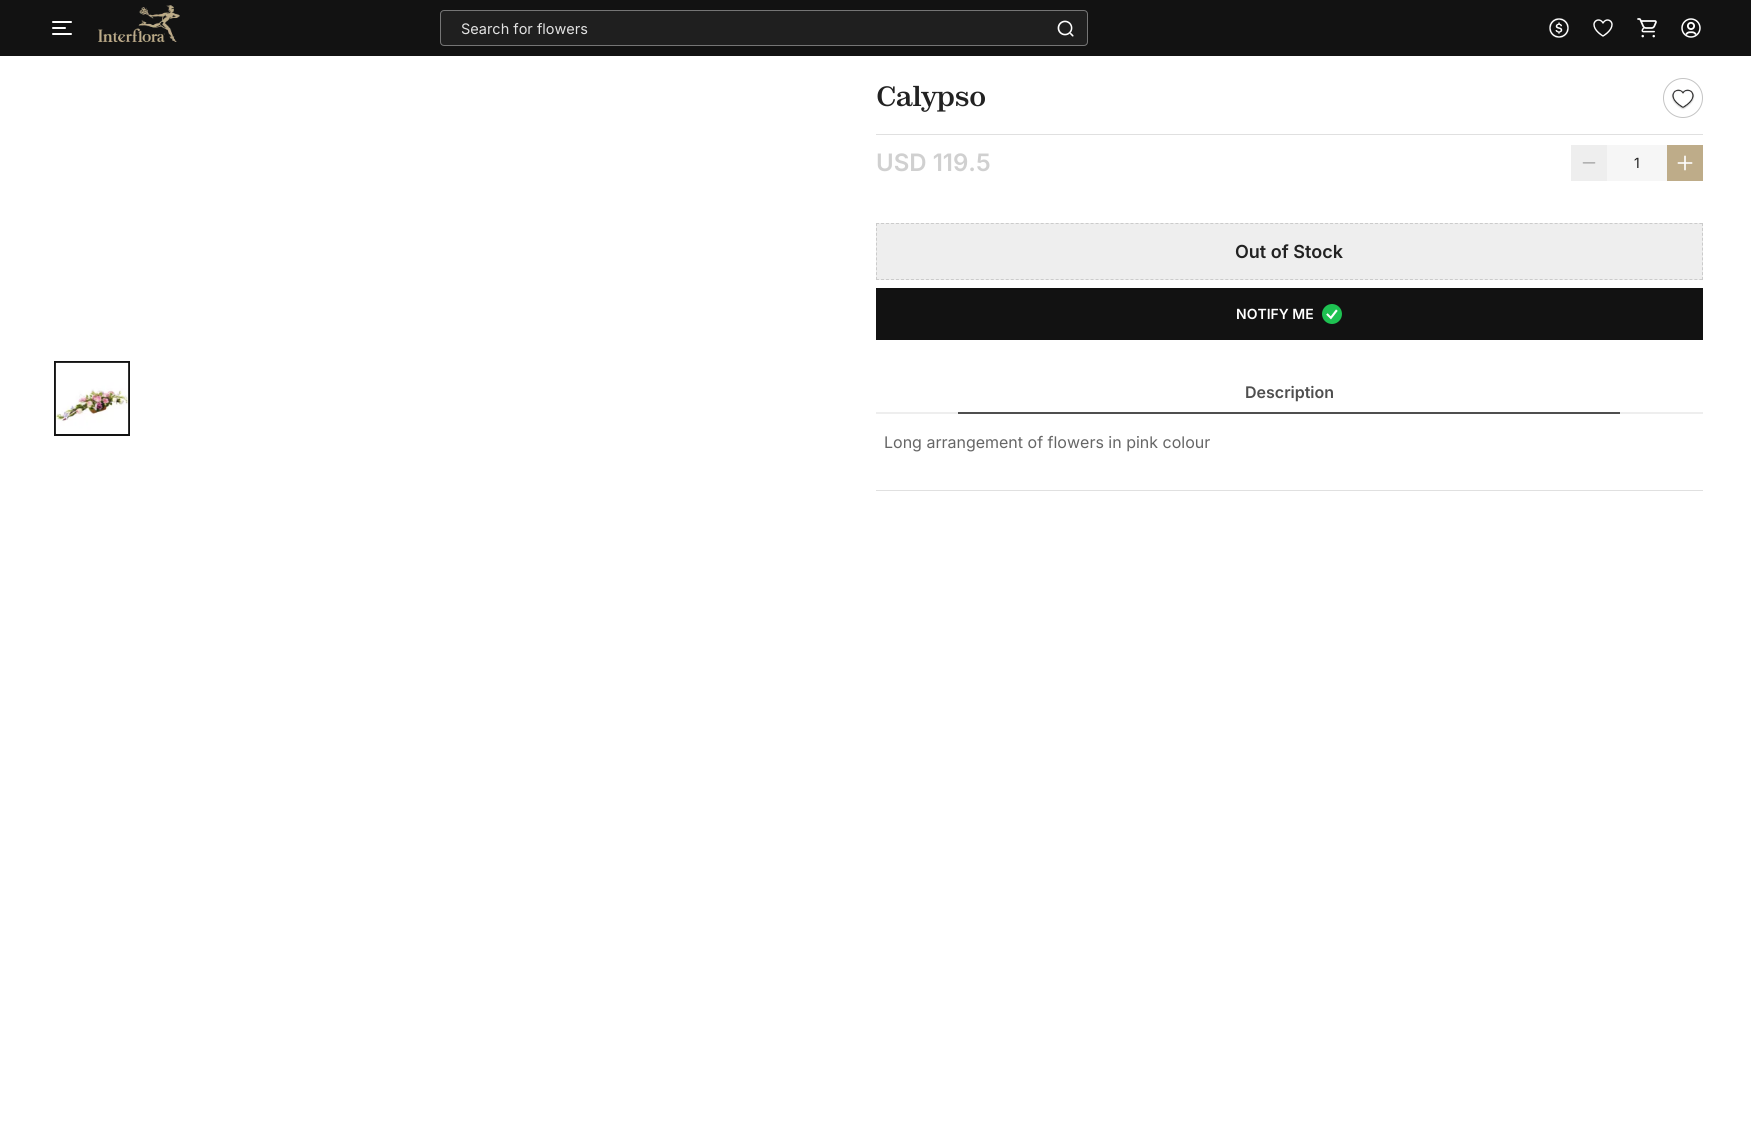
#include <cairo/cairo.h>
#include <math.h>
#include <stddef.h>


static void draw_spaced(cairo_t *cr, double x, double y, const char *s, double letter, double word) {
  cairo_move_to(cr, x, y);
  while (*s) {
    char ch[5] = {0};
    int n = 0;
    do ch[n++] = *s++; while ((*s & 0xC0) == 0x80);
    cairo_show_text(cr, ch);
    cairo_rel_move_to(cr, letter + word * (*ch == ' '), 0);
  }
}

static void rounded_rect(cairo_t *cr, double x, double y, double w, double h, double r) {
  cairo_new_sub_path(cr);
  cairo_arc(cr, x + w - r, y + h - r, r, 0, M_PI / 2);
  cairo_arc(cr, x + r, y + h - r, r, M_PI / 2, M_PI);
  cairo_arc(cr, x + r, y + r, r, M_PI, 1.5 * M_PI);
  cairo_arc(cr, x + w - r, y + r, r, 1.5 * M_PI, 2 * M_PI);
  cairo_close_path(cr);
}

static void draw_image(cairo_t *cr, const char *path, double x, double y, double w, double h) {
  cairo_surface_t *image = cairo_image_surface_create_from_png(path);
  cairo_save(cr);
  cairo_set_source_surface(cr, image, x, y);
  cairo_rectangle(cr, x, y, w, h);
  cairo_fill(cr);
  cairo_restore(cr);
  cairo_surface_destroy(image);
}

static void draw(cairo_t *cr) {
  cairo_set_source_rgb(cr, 1, 1, 1);
  cairo_paint(cr);
  cairo_set_source_rgb(cr, 18 / 255.0, 18 / 255.0, 18 / 255.0);
  cairo_rectangle(cr, 0, 0, 1751, 56);
  cairo_fill(cr);
  draw_image(cr, "images/1.png", 52, 21, 20, 14);
  draw_image(cr, "images/2.png", 98, 5, 82, 37);
  cairo_set_source_rgb(cr, 31 / 255.0, 31 / 255.0, 31 / 255.0);
  rounded_rect(cr, 440.5, 10.5, 647, 35, 3.5);
  cairo_fill_preserve(cr);
  cairo_set_source_rgb(cr, 117 / 255.0, 117 / 255.0, 117 / 255.0);
  cairo_set_line_width(cr, 1);
  cairo_stroke(cr);
  draw_image(cr, "images/3.png", 1057, 20, 17, 17);
  draw_image(cr, "images/4.png", 1549, 18, 20, 20);
  draw_image(cr, "images/5.png", 1593, 19, 20, 18);
  draw_image(cr, "images/6.png", 1637, 18, 20, 20);
  draw_image(cr, "images/7.png", 1681, 18, 20, 20);
  cairo_rectangle(cr, 55, 362, 74, 73);
  cairo_set_source_rgb(cr, 18 / 255.0, 18 / 255.0, 18 / 255.0);
  cairo_set_line_width(cr, 2);
  cairo_stroke(cr);
  draw_image(cr, "images/8.png", 55, 362, 74, 72);
  draw_image(cr, "images/9.png", 1671, 89, 24, 21);
  cairo_arc(cr, 1683, 98, 19.5, 0, 2 * M_PI);
  cairo_set_source_rgb(cr, 196 / 255.0, 196 / 255.0, 196 / 255.0);
  cairo_set_line_width(cr, 1);
  cairo_stroke(cr);
  cairo_set_source_rgb(cr, 224 / 255.0, 224 / 255.0, 224 / 255.0);
  cairo_rectangle(cr, 876, 134, 827, 1);
  cairo_fill(cr);
  cairo_set_source_rgb(cr, 238 / 255.0, 238 / 255.0, 238 / 255.0);
  cairo_rectangle(cr, 1571, 145, 36, 36);
  cairo_fill(cr);
  draw_image(cr, "images/10.png", 1582, 162, 14, 2);
  cairo_set_source_rgb(cr, 246 / 255.0, 246 / 255.0, 246 / 255.0);
  cairo_rectangle(cr, 1607, 145, 60, 36);
  cairo_fill(cr);
  cairo_set_source_rgb(cr, 190 / 255.0, 172 / 255.0, 137 / 255.0);
  cairo_rectangle(cr, 1667, 145, 36, 36);
  cairo_fill(cr);
  draw_image(cr, "images/11.png", 1677, 155, 16, 16);
  cairo_set_source_rgb(cr, 238 / 255.0, 238 / 255.0, 238 / 255.0);
  cairo_rectangle(cr, 876, 223, 827, 57);
  cairo_fill(cr);
  cairo_new_path(cr);
  cairo_move_to(cr, 876, 223.5);
  cairo_line_to(cr, 1703, 223.5);
  cairo_set_source_rgb(cr, 203 / 255.0, 203 / 255.0, 203 / 255.0);
  cairo_set_dash(cr, (double[]){3, 1.99}, 2, 0);
  cairo_stroke(cr);
  cairo_new_path(cr);
  cairo_move_to(cr, 1702.5, 223);
  cairo_line_to(cr, 1702.5, 280);
  cairo_set_dash(cr, (double[]){3, 1.91}, 2, 0);
  cairo_stroke(cr);
  cairo_new_path(cr);
  cairo_move_to(cr, 876, 279.5);
  cairo_line_to(cr, 1703, 279.5);
  cairo_set_dash(cr, (double[]){3, 1.99}, 2, 0);
  cairo_stroke(cr);
  cairo_new_path(cr);
  cairo_move_to(cr, 876.5, 223);
  cairo_line_to(cr, 876.5, 280);
  cairo_set_dash(cr, (double[]){3, 1.91}, 2, 0);
  cairo_stroke(cr);
  cairo_set_source_rgb(cr, 18 / 255.0, 18 / 255.0, 18 / 255.0);
  cairo_rectangle(cr, 876, 288, 827, 52);
  cairo_fill(cr);
  draw_image(cr, "images/12.png", 1322, 304, 20, 20);
  cairo_set_source_rgb(cr, 224 / 255.0, 224 / 255.0, 224 / 255.0);
  cairo_rectangle(cr, 876, 490, 827, 1);
  cairo_fill(cr);
  cairo_set_source_rgb(cr, 238 / 255.0, 238 / 255.0, 238 / 255.0);
  cairo_rectangle(cr, 876, 412, 827, 2);
  cairo_fill(cr);
  cairo_set_source_rgb(cr, 79 / 255.0, 79 / 255.0, 79 / 255.0);
  cairo_rectangle(cr, 958, 412, 662, 2);
  cairo_fill(cr);
  cairo_select_font_face(cr, "Inter", CAIRO_FONT_SLANT_NORMAL, CAIRO_FONT_WEIGHT_NORMAL);
  cairo_set_font_size(cr, 14.5);
  cairo_set_source_rgb(cr, 226 / 255.0, 226 / 255.0, 226 / 255.0);
  cairo_move_to(cr, 461, 34);
  cairo_show_text(cr, "Search for flowers");
  cairo_select_font_face(cr, "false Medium", CAIRO_FONT_SLANT_NORMAL, CAIRO_FONT_WEIGHT_NORMAL);
  cairo_set_font_size(cr, 28);
  cairo_set_source_rgb(cr, 34 / 255.0, 34 / 255.0, 34 / 255.0);
  draw_spaced(cr, 876, 106, "Calypso", -0.75, 0);
  cairo_select_font_face(cr, "Inter SemiBold", CAIRO_FONT_SLANT_NORMAL, CAIRO_FONT_WEIGHT_NORMAL);
  cairo_set_font_size(cr, 24);
  cairo_set_source_rgb(cr, 208 / 255.0, 208 / 255.0, 208 / 255.0);
  cairo_move_to(cr, 876, 171);
  cairo_show_text(cr, "USD 119.5");
  cairo_select_font_face(cr, "Inter", CAIRO_FONT_SLANT_NORMAL, CAIRO_FONT_WEIGHT_NORMAL);
  cairo_set_font_size(cr, 14);
  cairo_set_source_rgb(cr, 34 / 255.0, 34 / 255.0, 34 / 255.0);
  cairo_move_to(cr, 1634, 168);
  cairo_show_text(cr, "1");
  cairo_select_font_face(cr, "Inter SemiBold", CAIRO_FONT_SLANT_NORMAL, CAIRO_FONT_WEIGHT_NORMAL);
  cairo_set_font_size(cr, 18);
  cairo_move_to(cr, 1235, 258);
  cairo_show_text(cr, "Out of Stock");
  cairo_set_font_size(cr, 14);
  cairo_set_source_rgb(cr, 1, 1, 1);
  cairo_move_to(cr, 1236, 319);
  cairo_show_text(cr, "NOTIFY ME");
  cairo_set_font_size(cr, 16);
  cairo_set_source_rgb(cr, 79 / 255.0, 79 / 255.0, 79 / 255.0);
  cairo_move_to(cr, 1245, 398);
  cairo_show_text(cr, "Description");
  cairo_select_font_face(cr, "Inter", CAIRO_FONT_SLANT_NORMAL, CAIRO_FONT_WEIGHT_NORMAL);
  cairo_set_source_rgb(cr, 102 / 255.0, 102 / 255.0, 102 / 255.0);
  cairo_move_to(cr, 884, 448);
  cairo_show_text(cr, "Long arrangement of flowers in pink colour");
}

int main(void) {
  cairo_surface_t *surface = cairo_image_surface_create(CAIRO_FORMAT_RGB24, 1751, 1148);
  cairo_t *cr = cairo_create(surface);
  cairo_font_options_t *options = cairo_font_options_create();
  cairo_font_options_set_hint_metrics(options, CAIRO_HINT_METRICS_OFF);
  cairo_font_options_set_hint_style(options, CAIRO_HINT_STYLE_NONE);
  cairo_set_font_options(cr, options);
  cairo_set_miter_limit(cr, 4);
  draw(cr);
  cairo_surface_write_to_png(surface, "out.png");
  cairo_font_options_destroy(options);
  cairo_destroy(cr);
  cairo_surface_destroy(surface);
  return 0;
}
